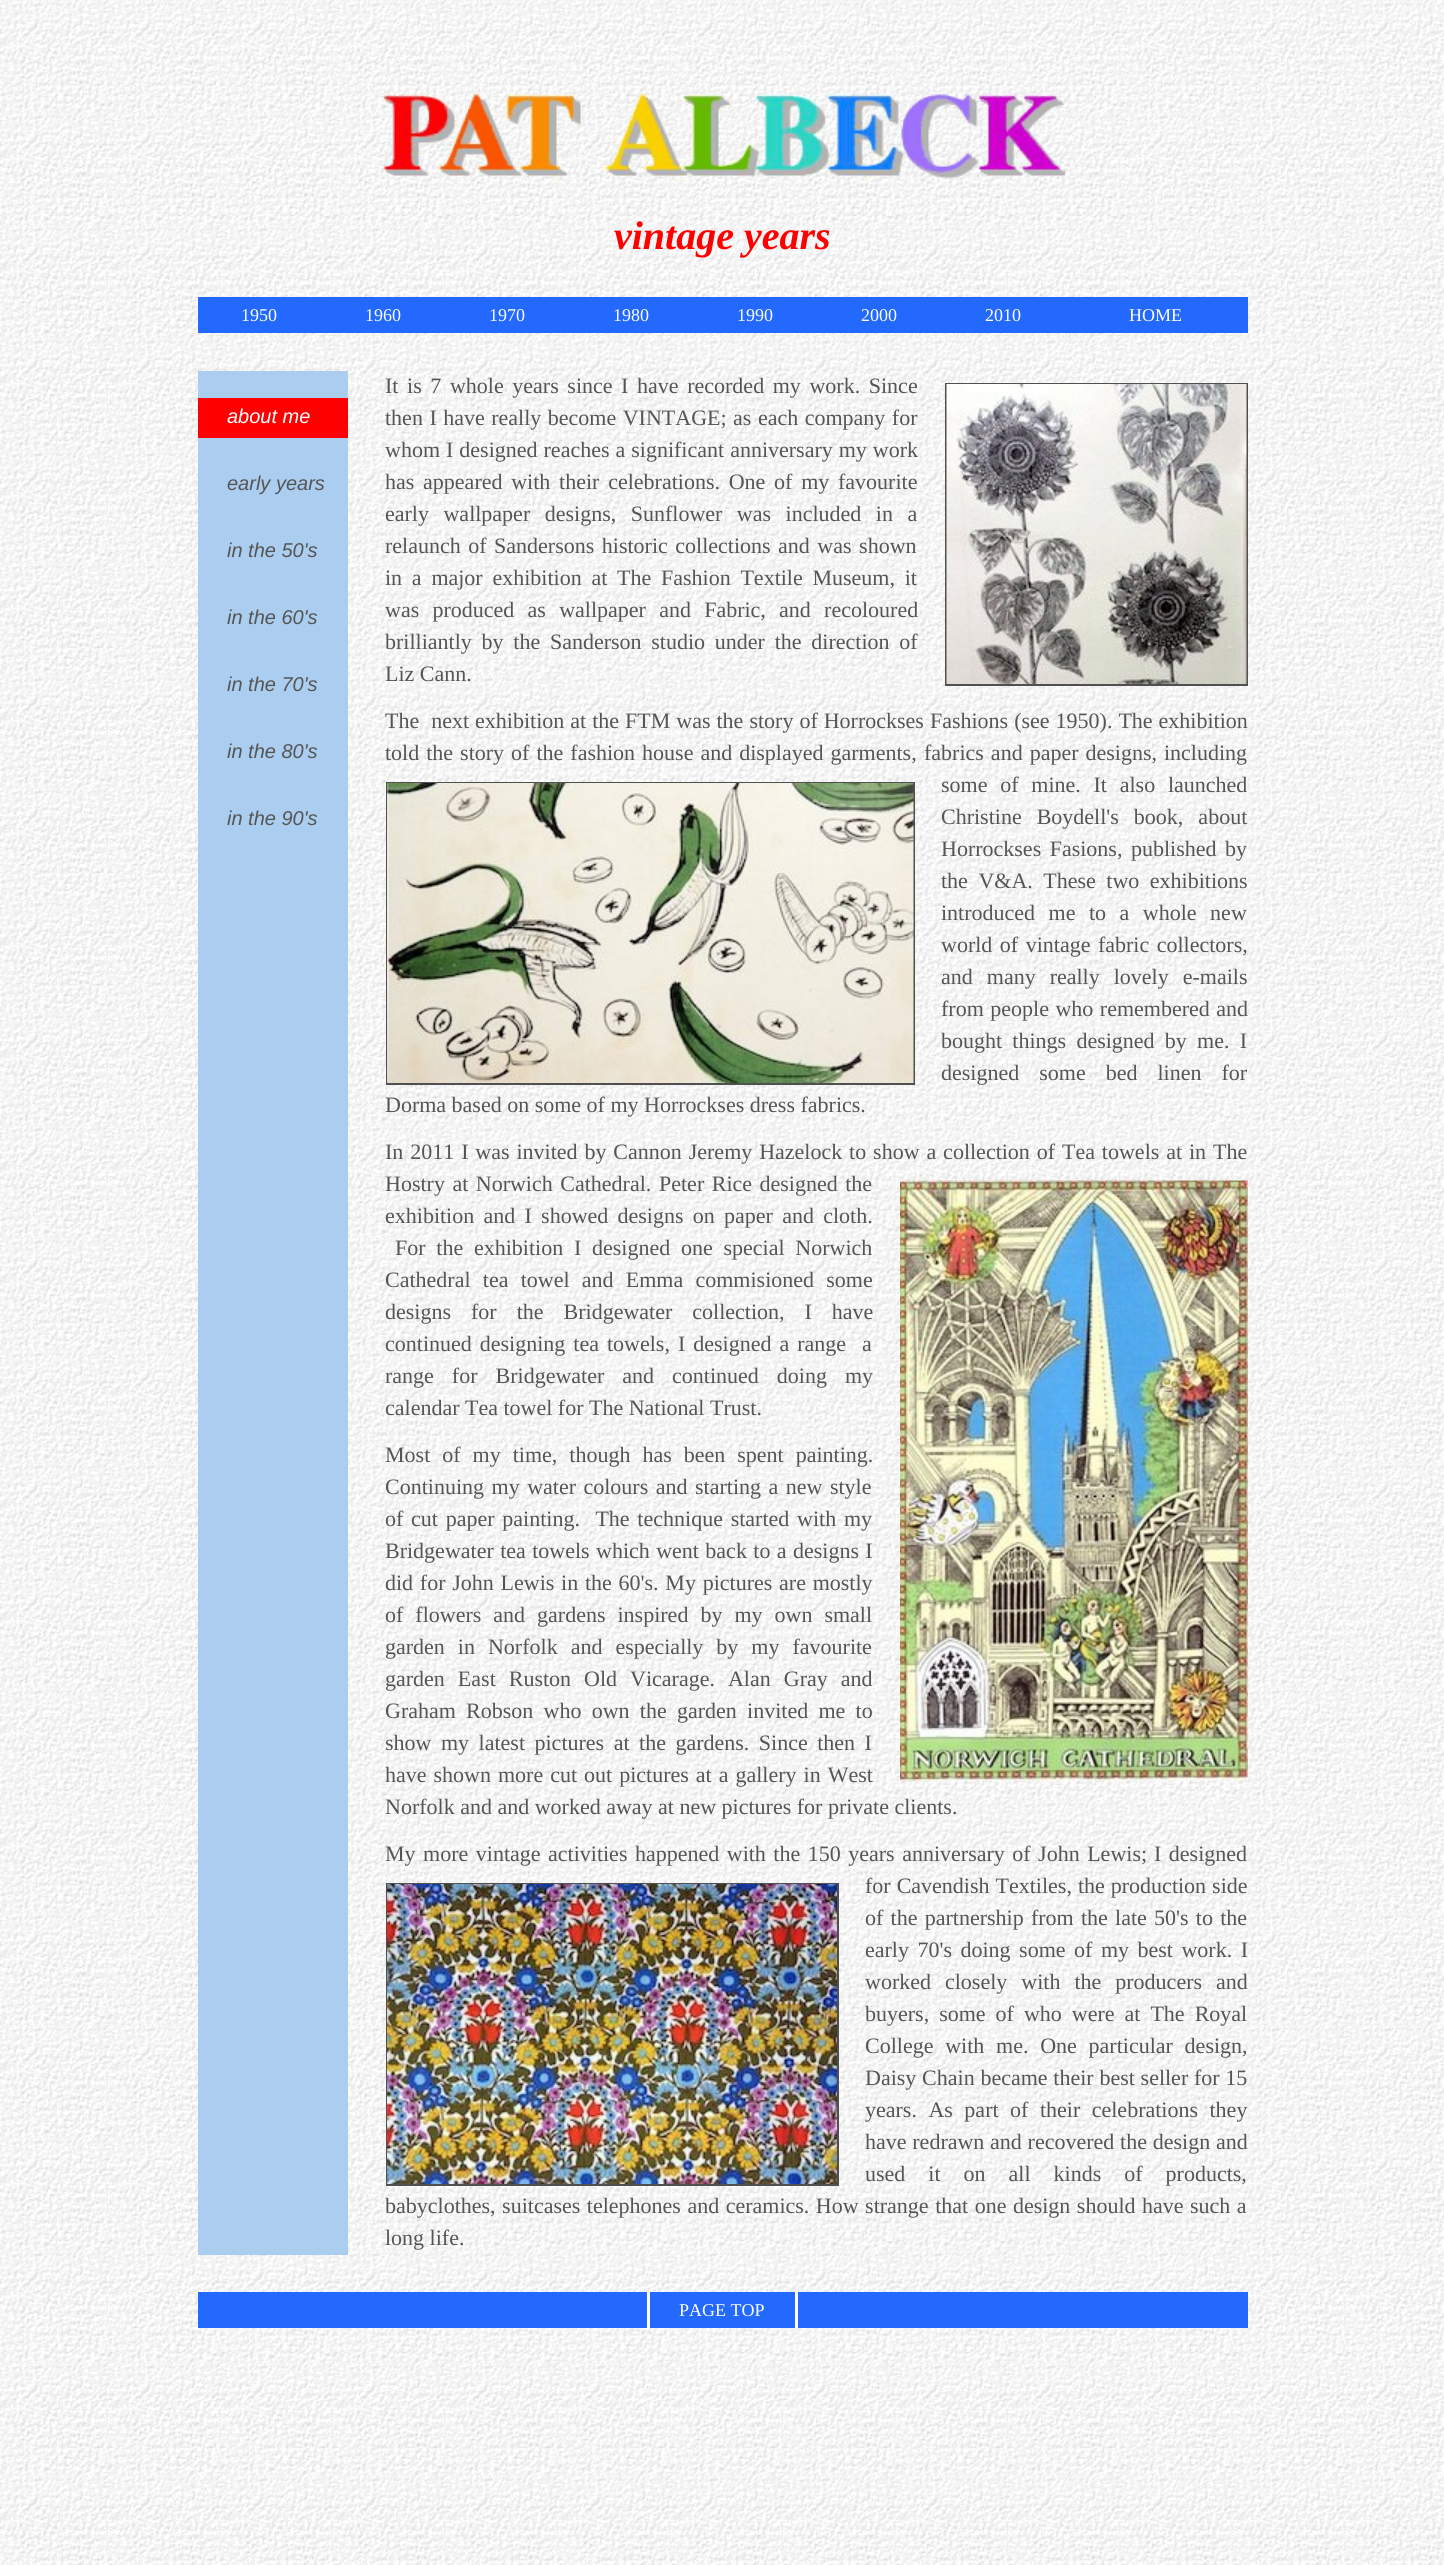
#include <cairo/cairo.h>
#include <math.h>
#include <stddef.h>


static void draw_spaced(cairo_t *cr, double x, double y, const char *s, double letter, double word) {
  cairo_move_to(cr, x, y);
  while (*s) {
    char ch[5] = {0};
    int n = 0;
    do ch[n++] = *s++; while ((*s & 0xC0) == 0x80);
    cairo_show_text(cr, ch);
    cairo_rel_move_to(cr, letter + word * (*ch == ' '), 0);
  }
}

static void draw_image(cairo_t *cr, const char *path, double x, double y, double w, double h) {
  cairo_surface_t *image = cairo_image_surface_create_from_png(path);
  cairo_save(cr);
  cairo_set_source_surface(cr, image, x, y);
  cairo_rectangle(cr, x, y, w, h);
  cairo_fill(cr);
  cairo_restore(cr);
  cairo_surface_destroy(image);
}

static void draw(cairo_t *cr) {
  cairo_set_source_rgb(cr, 1, 1, 1);
  cairo_paint(cr);
  draw_image(cr, "images/1.png", 0, 0, 1444, 2565);
  draw_image(cr, "images/2.png", 383, 85, 683, 97);
  cairo_set_source_rgb(cr, 35 / 255.0, 105 / 255.0, 253 / 255.0);
  cairo_rectangle(cr, 198, 297, 1050, 36);
  cairo_fill(cr);
  cairo_set_source_rgb(cr, 171 / 255.0, 205 / 255.0, 239 / 255.0);
  cairo_rectangle(cr, 198, 371, 150, 1884);
  cairo_fill(cr);
  cairo_set_source_rgb(cr, 1, 0, 0);
  cairo_rectangle(cr, 198, 398, 150, 40);
  cairo_fill(cr);
  cairo_rectangle(cr, 946, 384, 301, 301);
  cairo_set_source_rgb(cr, 80 / 255.0, 80 / 255.0, 80 / 255.0);
  cairo_stroke(cr);
  draw_image(cr, "images/3.png", 946, 384, 301, 300);
  cairo_rectangle(cr, 387, 783, 527, 301);
  cairo_stroke(cr);
  draw_image(cr, "images/4.png", 387, 783, 527, 300);
  draw_image(cr, "images/5.png", 900, 1180, 348, 601);
  cairo_rectangle(cr, 387, 1884, 451, 301);
  cairo_stroke(cr);
  draw_image(cr, "images/6.png", 387, 1884, 450, 300);
  cairo_set_source_rgb(cr, 35 / 255.0, 105 / 255.0, 253 / 255.0);
  cairo_rectangle(cr, 198, 2292, 449, 36);
  cairo_fill(cr);
  cairo_set_source_rgb(cr, 1, 1, 1);
  cairo_rectangle(cr, 647, 2292, 3, 36);
  cairo_fill(cr);
  cairo_set_source_rgb(cr, 35 / 255.0, 105 / 255.0, 253 / 255.0);
  cairo_rectangle(cr, 650, 2292, 145, 36);
  cairo_fill(cr);
  cairo_set_source_rgb(cr, 1, 1, 1);
  cairo_rectangle(cr, 795, 2292, 3, 36);
  cairo_fill(cr);
  cairo_set_source_rgb(cr, 35 / 255.0, 105 / 255.0, 253 / 255.0);
  cairo_rectangle(cr, 798, 2292, 450, 36);
  cairo_fill(cr);
  cairo_select_font_face(cr, "Liberation Serif", CAIRO_FONT_SLANT_ITALIC, CAIRO_FONT_WEIGHT_BOLD);
  cairo_set_font_size(cr, 40);
  cairo_set_source_rgb(cr, 1, 0, 0);
  cairo_move_to(cr, 614, 249);
  cairo_show_text(cr, "vintage years");
  cairo_select_font_face(cr, "Liberation Serif", CAIRO_FONT_SLANT_NORMAL, CAIRO_FONT_WEIGHT_NORMAL);
  cairo_set_font_size(cr, 18);
  cairo_set_source_rgb(cr, 1, 1, 1);
  cairo_move_to(cr, 241, 321);
  cairo_show_text(cr, "1950");
  cairo_move_to(cr, 365, 321);
  cairo_show_text(cr, "1960");
  cairo_move_to(cr, 489, 321);
  cairo_show_text(cr, "1970");
  cairo_move_to(cr, 613, 321);
  cairo_show_text(cr, "1980");
  cairo_move_to(cr, 737, 321);
  cairo_show_text(cr, "1990");
  cairo_move_to(cr, 861, 321);
  cairo_show_text(cr, "2000");
  cairo_move_to(cr, 985, 321);
  cairo_show_text(cr, "2010");
  cairo_move_to(cr, 1129, 321);
  cairo_show_text(cr, "HOME");
  cairo_select_font_face(cr, "Liberation Sans", CAIRO_FONT_SLANT_ITALIC, CAIRO_FONT_WEIGHT_NORMAL);
  cairo_set_font_size(cr, 20);
  cairo_move_to(cr, 227, 423);
  cairo_show_text(cr, "about me");
  cairo_set_source_rgb(cr, 85 / 255.0, 85 / 255.0, 85 / 255.0);
  cairo_move_to(cr, 227, 490);
  cairo_show_text(cr, "early years");
  cairo_move_to(cr, 227, 557);
  cairo_show_text(cr, "in the 50's");
  cairo_move_to(cr, 227, 624);
  cairo_show_text(cr, "in the 60's");
  cairo_move_to(cr, 227, 691);
  cairo_show_text(cr, "in the 70's");
  cairo_move_to(cr, 227, 758);
  cairo_show_text(cr, "in the 80's");
  cairo_move_to(cr, 227, 825);
  cairo_show_text(cr, "in the 90's");
  cairo_select_font_face(cr, "Liberation Serif", CAIRO_FONT_SLANT_NORMAL, CAIRO_FONT_WEIGHT_NORMAL);
  cairo_set_font_size(cr, 22);
  draw_spaced(cr, 385, 393, "It is 7 whole years since I have recorded my work. Since", 0, 3.1);
  draw_spaced(cr, 385, 425, "then I have really become VINTAGE; as each company for", 0, 1);
  draw_spaced(cr, 385, 457, "whom I designed reaches a significant anniversary my work", 0, 0.5);
  draw_spaced(cr, 385, 489, "has appeared with their celebrations. One of my favourite", 0, 3.25);
  draw_spaced(cr, 385, 521, "early wallpaper designs, Sunflower was included in a", 0, 9);
  draw_spaced(cr, 385, 553, "relaunch of Sandersons historic collections and was shown", 0, 2);
  draw_spaced(cr, 385, 585, "in a major exhibition at The Fashion Textile Museum, it", 0, 4.25);
  draw_spaced(cr, 385, 617, "was produced as wallpaper and Fabric, and recoloured", 0, 7.75);
  draw_spaced(cr, 385, 649, "brilliantly by the Sanderson studio under the direction of", 0, 4.25);
  cairo_move_to(cr, 385, 681);
  cairo_show_text(cr, "Liz Cann.");
  draw_spaced(cr, 385, 728, "The  next exhibition at the FTM was the story of Horrockses Fashions (see 1950). The exhibition", 0, 0.5);
  draw_spaced(cr, 385, 760, "told the story of the fashion house and displayed garments,", 0, 1.5);
  draw_spaced(cr, 924, 760, "fabrics and paper designs, including", 0, 1.5);
  draw_spaced(cr, 941, 792, "some of mine. It also launched", 0, 7.25);
  draw_spaced(cr, 941, 824, "Christine Boydell's book, about", 0, 9.5);
  draw_spaced(cr, 941, 856, "Horrockses Fasions, published by", 0, 3);
  draw_spaced(cr, 941, 888, "the V&A. These two exhibitions", 0, 5);
  draw_spaced(cr, 941, 920, "introduced me to a whole new", 0, 8);
  draw_spaced(cr, 941, 952, "world of vintage fabric collectors,", 0, 2);
  draw_spaced(cr, 941, 984, "and many really lovely e-mails", 0, 8.5);
  draw_spaced(cr, 941, 1016, "from people who remembered and", 0, 1);
  draw_spaced(cr, 941, 1048, "bought things designed by me. I", 0, 4.75);
  draw_spaced(cr, 941, 1080, "designed some bed linen for", 0, 14.5);
  cairo_move_to(cr, 385, 1112);
  cairo_show_text(cr, "Dorma based on some of my Horrockses dress fabrics.");
  draw_spaced(cr, 385, 1159, "In 2011 I was invited by Cannon Jeremy Hazelock to show a collection of Tea towels at in The", 0, 1.4);
  draw_spaced(cr, 385, 1191, "Hostry at Norwich Cathedral.", 0, 2);
  draw_spaced(cr, 659, 1191, "Peter Rice designed the", 0, 2);
  draw_spaced(cr, 385, 1223, "exhibition and I showed designs on paper and cloth.", 0, 3.75);
  draw_spaced(cr, 395, 1255, "For the exhibition I designed one special Norwich", 0, 5.25);
  draw_spaced(cr, 385, 1287, "Cathedral tea towel and Emma commisioned some", 0, 6.75);
  draw_spaced(cr, 385, 1319, "designs for the Bridgewater collection, I have", 0, 14.5);
  draw_spaced(cr, 385, 1351, "continued designing tea towels, I designed a range  a", 0, 2.5);
  draw_spaced(cr, 385, 1383, "range for Bridgewater and continued doing my", 0, 12.5);
  cairo_move_to(cr, 385, 1415);
  cairo_show_text(cr, "calendar Tea towel for The National Trust.");
  draw_spaced(cr, 385, 1462, "Most of my time, though has been spent painting.", 0, 6.5);
  draw_spaced(cr, 385, 1494, "Continuing my water colours and starting a new style", 0, 2);
  draw_spaced(cr, 385, 1526, "of cut paper painting.  The technique started with my", 0, 2.25);
  draw_spaced(cr, 385, 1558, "Bridgewater tea towels which went back to a designs I", 0, 0.9);
  draw_spaced(cr, 385, 1590, "did for John Lewis in the 60's. My pictures are mostly", 0, 1.25);
  draw_spaced(cr, 385, 1622, "of flowers and gardens inspired by my own small", 0, 6.5);
  draw_spaced(cr, 385, 1654, "garden in Norfolk and especially by my favourite", 0, 7.5);
  draw_spaced(cr, 385, 1686, "garden East Ruston Old Vicarage. Alan Gray and", 0, 7.5);
  draw_spaced(cr, 385, 1718, "Graham Robson who own the garden invited me to", 0, 4.75);
  draw_spaced(cr, 385, 1750, "show my latest pictures at the gardens. Since then I", 0, 4);
  draw_spaced(cr, 385, 1782, "have shown more cut out pictures at a gallery in West", 0, 1.5);
  cairo_move_to(cr, 385, 1814);
  cairo_show_text(cr, "Norfolk and and worked away at new pictures for private clients.");
  draw_spaced(cr, 385, 1861, "My more vintage activities happened with the 150 years anniversary of John Lewis;", 0, 2);
  draw_spaced(cr, 1154, 1861, "I designed", 0, 2);
  draw_spaced(cr, 865, 1893, "for Cavendish Textiles, the production side", 0, 0.5);
  draw_spaced(cr, 865, 1925, "of the partnership from the late 50's to the", 0, 1.75);
  draw_spaced(cr, 865, 1957, "early 70's doing some of my best work. I", 0, 3);
  draw_spaced(cr, 865, 1989, "worked closely with the producers and", 0, 8.5);
  draw_spaced(cr, 865, 2021, "buyers, some of who were at The Royal", 0, 4.5);
  draw_spaced(cr, 865, 2053, "College with me. One particular design,", 0, 6.25);
  draw_spaced(cr, 865, 2085, "Daisy Chain became their best seller for 15", 0, 0.25);
  draw_spaced(cr, 865, 2117, "years. As part of their celebrations they", 0, 6);
  draw_spaced(cr, 865, 2149, "have redrawn and recovered the design and", 0, 0.25);
  draw_spaced(cr, 865, 2181, "used it on all kinds of products,", 0, 17.5);
  draw_spaced(cr, 385, 2213, "babyclothes, suitcases telephones and ceramics. How strange that one design should have such a", 0, 1);
  cairo_move_to(cr, 385, 2245);
  cairo_show_text(cr, "long life.");
  cairo_set_font_size(cr, 18);
  cairo_set_source_rgb(cr, 1, 1, 1);
  cairo_move_to(cr, 679, 2316);
  cairo_show_text(cr, "PAGE TOP");
}

int main(void) {
  cairo_surface_t *surface = cairo_image_surface_create(CAIRO_FORMAT_RGB24, 1444, 2565);
  cairo_t *cr = cairo_create(surface);
  cairo_font_options_t *options = cairo_font_options_create();
  cairo_font_options_set_hint_metrics(options, CAIRO_HINT_METRICS_OFF);
  cairo_font_options_set_hint_style(options, CAIRO_HINT_STYLE_NONE);
  cairo_set_font_options(cr, options);
  cairo_set_miter_limit(cr, 4);
  draw(cr);
  cairo_surface_write_to_png(surface, "out.png");
  cairo_font_options_destroy(options);
  cairo_destroy(cr);
  cairo_surface_destroy(surface);
  return 0;
}
